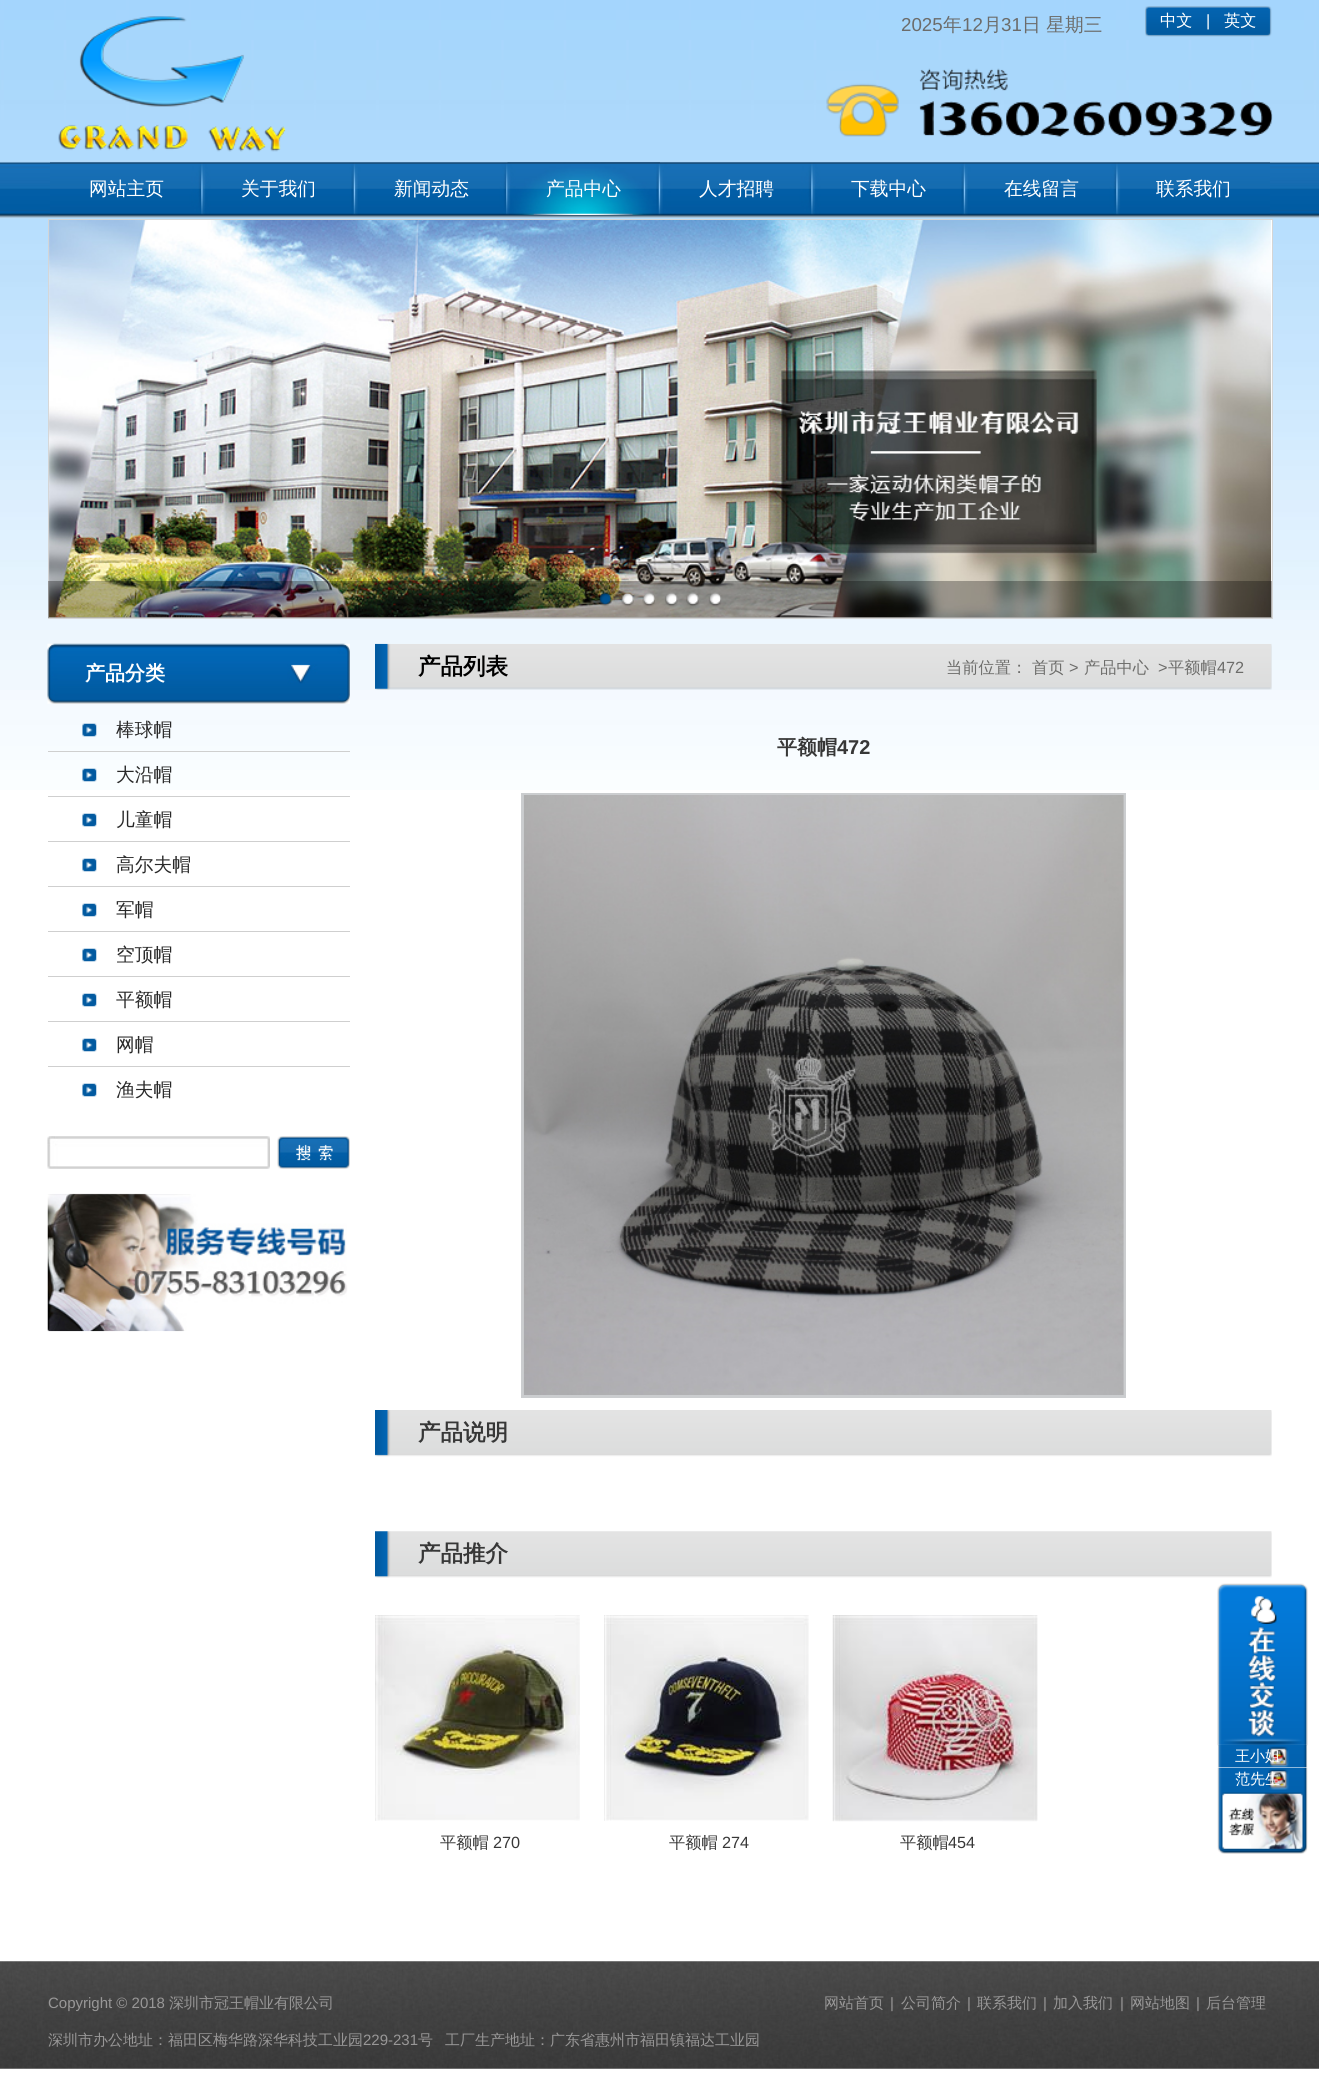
#include <cairo/cairo.h>
#include <math.h>
#include <stddef.h>


static void draw_image(cairo_t *cr, const char *path, double x, double y, double w, double h) {
  cairo_surface_t *image = cairo_image_surface_create_from_png(path);
  cairo_save(cr);
  cairo_set_source_surface(cr, image, x, y);
  cairo_rectangle(cr, x, y, w, h);
  cairo_fill(cr);
  cairo_restore(cr);
  cairo_surface_destroy(image);
}

static void draw(cairo_t *cr) {
  cairo_set_source_rgb(cr, 1, 1, 1);
  cairo_paint(cr);
  draw_image(cr, "images/1.png", 0, 0, 1319, 790);
  draw_image(cr, "images/2.png", 58, 16, 228, 136);
  draw_image(cr, "images/3.png", 1145, 6, 127, 31);
  draw_image(cr, "images/4.png", 826, 68, 447, 69);
  draw_image(cr, "images/5.png", 50, 162, 1220, 53);
  draw_image(cr, "images/6.png", 507, 162, 153, 53);
  cairo_set_source_rgb(cr, 1, 1, 1);
  cairo_rectangle(cr, 48.5, 219.5, 1224, 399);
  cairo_fill_preserve(cr);
  cairo_set_source_rgb(cr, 213 / 255.0, 213 / 255.0, 213 / 255.0);
  cairo_set_line_width(cr, 1);
  cairo_stroke(cr);
  draw_image(cr, "images/7.png", 48, 220, 1224, 398);
  cairo_set_source_rgba(cr, 0, 0, 0, 0.3);
  cairo_rectangle(cr, 48, 581, 1224, 37);
  cairo_fill(cr);
  draw_image(cr, "images/8.png", 599, 592, 13, 15);
  draw_image(cr, "images/9.png", 621, 592, 13, 15);
  draw_image(cr, "images/10.png", 642, 592, 13, 15);
  draw_image(cr, "images/11.png", 665, 592, 13, 15);
  draw_image(cr, "images/12.png", 686, 592, 13, 15);
  draw_image(cr, "images/13.png", 708, 592, 14, 15);
  draw_image(cr, "images/14.png", 47, 643, 303, 61);
  cairo_set_source_rgb(cr, 207 / 255.0, 207 / 255.0, 207 / 255.0);
  cairo_rectangle(cr, 48, 751, 302, 1);
  cairo_fill(cr);
  draw_image(cr, "images/15.png", 82, 723, 15, 14);
  cairo_rectangle(cr, 48, 796, 302, 1);
  cairo_fill(cr);
  draw_image(cr, "images/16.png", 82, 768, 15, 14);
  cairo_rectangle(cr, 48, 841, 302, 1);
  cairo_fill(cr);
  draw_image(cr, "images/17.png", 82, 813, 15, 14);
  cairo_rectangle(cr, 48, 886, 302, 1);
  cairo_fill(cr);
  draw_image(cr, "images/17.png", 82, 858, 15, 14);
  cairo_rectangle(cr, 48, 931, 302, 1);
  cairo_fill(cr);
  draw_image(cr, "images/17.png", 82, 903, 15, 14);
  cairo_rectangle(cr, 48, 976, 302, 1);
  cairo_fill(cr);
  draw_image(cr, "images/17.png", 82, 948, 15, 14);
  cairo_rectangle(cr, 48, 1021, 302, 1);
  cairo_fill(cr);
  draw_image(cr, "images/17.png", 82, 993, 15, 14);
  cairo_rectangle(cr, 48, 1066, 302, 1);
  cairo_fill(cr);
  draw_image(cr, "images/17.png", 82, 1038, 15, 14);
  draw_image(cr, "images/17.png", 82, 1083, 15, 14);
  draw_image(cr, "images/18.png", 47, 1136, 223, 33);
  draw_image(cr, "images/19.png", 277, 1136, 73, 33);
  draw_image(cr, "images/20.png", 47, 1193, 301, 139);
  draw_image(cr, "images/21.png", 375, 643, 897, 47);
  cairo_rectangle(cr, 522.5, 794.5, 602, 602);
  cairo_set_source_rgb(cr, 203 / 255.0, 205 / 255.0, 207 / 255.0);
  cairo_set_line_width(cr, 3);
  cairo_stroke(cr);
  draw_image(cr, "images/22.png", 523, 795, 601, 600);
  draw_image(cr, "images/23.png", 375, 1410, 897, 47);
  draw_image(cr, "images/24.png", 375, 1531, 897, 47);
  draw_image(cr, "images/25.png", 375, 1615, 205, 206);
  draw_image(cr, "images/26.png", 604, 1615, 205, 206);
  draw_image(cr, "images/27.png", 832, 1615, 206, 207);
  draw_image(cr, "images/28.png", 1217, 1583, 91, 163);
  draw_image(cr, "images/29.png", 1217, 1745, 91, 23);
  draw_image(cr, "images/30.png", 1217, 1767, 91, 23);
  draw_image(cr, "images/31.png", 1217, 1790, 91, 64);
  draw_image(cr, "images/32.png", 0, 1961, 1319, 108);
  cairo_select_font_face(cr, "Liberation Sans", CAIRO_FONT_SLANT_NORMAL, CAIRO_FONT_WEIGHT_NORMAL);
  cairo_set_font_size(cr, 18.75);
  cairo_set_source_rgb(cr, 108 / 255.0, 108 / 255.0, 106 / 255.0);
  cairo_move_to(cr, 901, 31);
  cairo_show_text(cr, "2025");
  cairo_select_font_face(cr, "WenQuanYi Zen Hei Medium", CAIRO_FONT_SLANT_NORMAL, CAIRO_FONT_WEIGHT_NORMAL);
  cairo_move_to(cr, 943, 31);
  cairo_show_text(cr, "年");
  cairo_select_font_face(cr, "Liberation Sans", CAIRO_FONT_SLANT_NORMAL, CAIRO_FONT_WEIGHT_NORMAL);
  cairo_move_to(cr, 962, 31);
  cairo_show_text(cr, "12");
  cairo_select_font_face(cr, "WenQuanYi Zen Hei Medium", CAIRO_FONT_SLANT_NORMAL, CAIRO_FONT_WEIGHT_NORMAL);
  cairo_move_to(cr, 983, 31);
  cairo_show_text(cr, "月");
  cairo_select_font_face(cr, "Liberation Sans", CAIRO_FONT_SLANT_NORMAL, CAIRO_FONT_WEIGHT_NORMAL);
  cairo_move_to(cr, 1001, 31);
  cairo_show_text(cr, "31");
  cairo_select_font_face(cr, "WenQuanYi Zen Hei Medium", CAIRO_FONT_SLANT_NORMAL, CAIRO_FONT_WEIGHT_NORMAL);
  cairo_move_to(cr, 1022, 31);
  cairo_show_text(cr, "日 星期三");
  cairo_set_font_size(cr, 16.25);
  cairo_set_source_rgb(cr, 1, 1, 1);
  cairo_move_to(cr, 1160, 26);
  cairo_show_text(cr, "中文");
  cairo_select_font_face(cr, "Liberation Sans", CAIRO_FONT_SLANT_NORMAL, CAIRO_FONT_WEIGHT_NORMAL);
  cairo_move_to(cr, 1206, 26);
  cairo_show_text(cr, "|");
  cairo_select_font_face(cr, "WenQuanYi Zen Hei Medium", CAIRO_FONT_SLANT_NORMAL, CAIRO_FONT_WEIGHT_NORMAL);
  cairo_move_to(cr, 1224, 26);
  cairo_show_text(cr, "英文");
  cairo_set_font_size(cr, 18.75);
  cairo_move_to(cr, 89, 195);
  cairo_show_text(cr, "网站主页");
  cairo_move_to(cr, 241, 195);
  cairo_show_text(cr, "关于我们");
  cairo_move_to(cr, 394, 195);
  cairo_show_text(cr, "新闻动态");
  cairo_move_to(cr, 546, 195);
  cairo_show_text(cr, "产品中心");
  cairo_move_to(cr, 699, 195);
  cairo_show_text(cr, "人才招聘");
  cairo_move_to(cr, 851, 195);
  cairo_show_text(cr, "下载中心");
  cairo_move_to(cr, 1004, 195);
  cairo_show_text(cr, "在线留言");
  cairo_move_to(cr, 1156, 195);
  cairo_show_text(cr, "联系我们");
  cairo_select_font_face(cr, "WenQuanYi Zen Hei", CAIRO_FONT_SLANT_NORMAL, CAIRO_FONT_WEIGHT_BOLD);
  cairo_set_font_size(cr, 20);
  cairo_move_to(cr, 85, 680);
  cairo_show_text(cr, "产品分类");
  cairo_select_font_face(cr, "WenQuanYi Zen Hei Medium", CAIRO_FONT_SLANT_NORMAL, CAIRO_FONT_WEIGHT_NORMAL);
  cairo_set_font_size(cr, 18.75);
  cairo_set_source_rgb(cr, 40 / 255.0, 40 / 255.0, 40 / 255.0);
  cairo_move_to(cr, 116, 736);
  cairo_show_text(cr, "棒球帽");
  cairo_move_to(cr, 116, 781);
  cairo_show_text(cr, "大沿帽");
  cairo_move_to(cr, 116, 826);
  cairo_show_text(cr, "儿童帽");
  cairo_move_to(cr, 116, 871);
  cairo_show_text(cr, "高尔夫帽");
  cairo_move_to(cr, 116, 916);
  cairo_show_text(cr, "军帽");
  cairo_move_to(cr, 116, 961);
  cairo_show_text(cr, "空顶帽");
  cairo_move_to(cr, 116, 1006);
  cairo_show_text(cr, "平额帽");
  cairo_move_to(cr, 116, 1051);
  cairo_show_text(cr, "网帽");
  cairo_move_to(cr, 116, 1096);
  cairo_show_text(cr, "渔夫帽");
  cairo_select_font_face(cr, "WenQuanYi Zen Hei", CAIRO_FONT_SLANT_NORMAL, CAIRO_FONT_WEIGHT_BOLD);
  cairo_set_font_size(cr, 22.5);
  cairo_set_source_rgb(cr, 0, 0, 0);
  cairo_move_to(cr, 418, 674);
  cairo_show_text(cr, "产品列表");
  cairo_select_font_face(cr, "WenQuanYi Zen Hei Medium", CAIRO_FONT_SLANT_NORMAL, CAIRO_FONT_WEIGHT_NORMAL);
  cairo_set_font_size(cr, 16.25);
  cairo_set_source_rgb(cr, 108 / 255.0, 108 / 255.0, 106 / 255.0);
  cairo_move_to(cr, 946, 673);
  cairo_show_text(cr, "当前位置： 首页");
  cairo_select_font_face(cr, "Liberation Sans", CAIRO_FONT_SLANT_NORMAL, CAIRO_FONT_WEIGHT_NORMAL);
  cairo_move_to(cr, 1069, 673);
  cairo_show_text(cr, ">");
  cairo_select_font_face(cr, "WenQuanYi Zen Hei Medium", CAIRO_FONT_SLANT_NORMAL, CAIRO_FONT_WEIGHT_NORMAL);
  cairo_move_to(cr, 1084, 673);
  cairo_show_text(cr, "产品中心");
  cairo_select_font_face(cr, "Liberation Sans", CAIRO_FONT_SLANT_NORMAL, CAIRO_FONT_WEIGHT_NORMAL);
  cairo_move_to(cr, 1158, 673);
  cairo_show_text(cr, ">");
  cairo_select_font_face(cr, "WenQuanYi Zen Hei Medium", CAIRO_FONT_SLANT_NORMAL, CAIRO_FONT_WEIGHT_NORMAL);
  cairo_move_to(cr, 1168, 673);
  cairo_show_text(cr, "平额帽");
  cairo_select_font_face(cr, "Liberation Sans", CAIRO_FONT_SLANT_NORMAL, CAIRO_FONT_WEIGHT_NORMAL);
  cairo_move_to(cr, 1217, 673);
  cairo_show_text(cr, "472");
  cairo_select_font_face(cr, "WenQuanYi Zen Hei", CAIRO_FONT_SLANT_NORMAL, CAIRO_FONT_WEIGHT_BOLD);
  cairo_set_font_size(cr, 20);
  cairo_set_source_rgb(cr, 55 / 255.0, 55 / 255.0, 55 / 255.0);
  cairo_move_to(cr, 777, 754);
  cairo_show_text(cr, "平额帽");
  cairo_select_font_face(cr, "Liberation Sans", CAIRO_FONT_SLANT_NORMAL, CAIRO_FONT_WEIGHT_BOLD);
  cairo_move_to(cr, 837, 754);
  cairo_show_text(cr, "472");
  cairo_select_font_face(cr, "WenQuanYi Zen Hei", CAIRO_FONT_SLANT_NORMAL, CAIRO_FONT_WEIGHT_BOLD);
  cairo_set_font_size(cr, 22.5);
  cairo_move_to(cr, 418, 1440);
  cairo_show_text(cr, "产品说明");
  cairo_move_to(cr, 418, 1561);
  cairo_show_text(cr, "产品推介");
  cairo_select_font_face(cr, "WenQuanYi Zen Hei Medium", CAIRO_FONT_SLANT_NORMAL, CAIRO_FONT_WEIGHT_NORMAL);
  cairo_set_font_size(cr, 16.25);
  cairo_move_to(cr, 440, 1848);
  cairo_show_text(cr, "平额帽");
  cairo_select_font_face(cr, "Liberation Sans", CAIRO_FONT_SLANT_NORMAL, CAIRO_FONT_WEIGHT_NORMAL);
  cairo_move_to(cr, 493, 1848);
  cairo_show_text(cr, "270");
  cairo_select_font_face(cr, "WenQuanYi Zen Hei Medium", CAIRO_FONT_SLANT_NORMAL, CAIRO_FONT_WEIGHT_NORMAL);
  cairo_move_to(cr, 669, 1848);
  cairo_show_text(cr, "平额帽");
  cairo_select_font_face(cr, "Liberation Sans", CAIRO_FONT_SLANT_NORMAL, CAIRO_FONT_WEIGHT_NORMAL);
  cairo_move_to(cr, 722, 1848);
  cairo_show_text(cr, "274");
  cairo_select_font_face(cr, "WenQuanYi Zen Hei Medium", CAIRO_FONT_SLANT_NORMAL, CAIRO_FONT_WEIGHT_NORMAL);
  cairo_move_to(cr, 900, 1848);
  cairo_show_text(cr, "平额帽");
  cairo_select_font_face(cr, "Liberation Sans", CAIRO_FONT_SLANT_NORMAL, CAIRO_FONT_WEIGHT_NORMAL);
  cairo_move_to(cr, 948, 1848);
  cairo_show_text(cr, "454");
  cairo_select_font_face(cr, "WenQuanYi Zen Hei Medium", CAIRO_FONT_SLANT_NORMAL, CAIRO_FONT_WEIGHT_NORMAL);
  cairo_set_font_size(cr, 15);
  cairo_set_source_rgb(cr, 1, 1, 1);
  cairo_move_to(cr, 1235, 1761);
  cairo_show_text(cr, "王小姐");
  cairo_move_to(cr, 1235, 1784);
  cairo_show_text(cr, "范先生");
  cairo_select_font_face(cr, "Liberation Sans", CAIRO_FONT_SLANT_NORMAL, CAIRO_FONT_WEIGHT_NORMAL);
  cairo_set_source_rgb(cr, 152 / 255.0, 151 / 255.0, 151 / 255.0);
  cairo_move_to(cr, 48, 2008);
  cairo_show_text(cr, "Copyright © 2018");
  cairo_select_font_face(cr, "WenQuanYi Zen Hei Medium", CAIRO_FONT_SLANT_NORMAL, CAIRO_FONT_WEIGHT_NORMAL);
  cairo_move_to(cr, 169, 2008);
  cairo_show_text(cr, "深圳市冠王帽业有限公司");
  cairo_move_to(cr, 824, 2008);
  cairo_show_text(cr, "网站首页");
  cairo_select_font_face(cr, "Liberation Sans", CAIRO_FONT_SLANT_NORMAL, CAIRO_FONT_WEIGHT_NORMAL);
  cairo_move_to(cr, 890, 2008);
  cairo_show_text(cr, "|");
  cairo_select_font_face(cr, "WenQuanYi Zen Hei Medium", CAIRO_FONT_SLANT_NORMAL, CAIRO_FONT_WEIGHT_NORMAL);
  cairo_move_to(cr, 901, 2008);
  cairo_show_text(cr, "公司简介");
  cairo_select_font_face(cr, "Liberation Sans", CAIRO_FONT_SLANT_NORMAL, CAIRO_FONT_WEIGHT_NORMAL);
  cairo_move_to(cr, 967, 2008);
  cairo_show_text(cr, "|");
  cairo_select_font_face(cr, "WenQuanYi Zen Hei Medium", CAIRO_FONT_SLANT_NORMAL, CAIRO_FONT_WEIGHT_NORMAL);
  cairo_move_to(cr, 977, 2008);
  cairo_show_text(cr, "联系我们");
  cairo_select_font_face(cr, "Liberation Sans", CAIRO_FONT_SLANT_NORMAL, CAIRO_FONT_WEIGHT_NORMAL);
  cairo_move_to(cr, 1043, 2008);
  cairo_show_text(cr, "|");
  cairo_select_font_face(cr, "WenQuanYi Zen Hei Medium", CAIRO_FONT_SLANT_NORMAL, CAIRO_FONT_WEIGHT_NORMAL);
  cairo_move_to(cr, 1053, 2008);
  cairo_show_text(cr, "加入我们");
  cairo_select_font_face(cr, "Liberation Sans", CAIRO_FONT_SLANT_NORMAL, CAIRO_FONT_WEIGHT_NORMAL);
  cairo_move_to(cr, 1120, 2008);
  cairo_show_text(cr, "|");
  cairo_select_font_face(cr, "WenQuanYi Zen Hei Medium", CAIRO_FONT_SLANT_NORMAL, CAIRO_FONT_WEIGHT_NORMAL);
  cairo_move_to(cr, 1130, 2008);
  cairo_show_text(cr, "网站地图");
  cairo_select_font_face(cr, "Liberation Sans", CAIRO_FONT_SLANT_NORMAL, CAIRO_FONT_WEIGHT_NORMAL);
  cairo_move_to(cr, 1196, 2008);
  cairo_show_text(cr, "|");
  cairo_select_font_face(cr, "WenQuanYi Zen Hei Medium", CAIRO_FONT_SLANT_NORMAL, CAIRO_FONT_WEIGHT_NORMAL);
  cairo_move_to(cr, 1206, 2008);
  cairo_show_text(cr, "后台管理");
  cairo_move_to(cr, 48, 2045);
  cairo_show_text(cr, "深圳市办公地址：福田区梅华路深华科技工业园");
  cairo_select_font_face(cr, "Liberation Sans", CAIRO_FONT_SLANT_NORMAL, CAIRO_FONT_WEIGHT_NORMAL);
  cairo_move_to(cr, 363, 2045);
  cairo_show_text(cr, "229-231");
  cairo_select_font_face(cr, "WenQuanYi Zen Hei Medium", CAIRO_FONT_SLANT_NORMAL, CAIRO_FONT_WEIGHT_NORMAL);
  cairo_move_to(cr, 418, 2045);
  cairo_show_text(cr, "号");
  cairo_move_to(cr, 445, 2045);
  cairo_show_text(cr, "工厂生产地址：广东省惠州市福田镇福达工业园");
}

int main(void) {
  cairo_surface_t *surface = cairo_image_surface_create(CAIRO_FORMAT_RGB24, 1319, 2078);
  cairo_t *cr = cairo_create(surface);
  cairo_font_options_t *options = cairo_font_options_create();
  cairo_font_options_set_hint_metrics(options, CAIRO_HINT_METRICS_OFF);
  cairo_font_options_set_hint_style(options, CAIRO_HINT_STYLE_NONE);
  cairo_set_font_options(cr, options);
  cairo_set_miter_limit(cr, 4);
  draw(cr);
  cairo_surface_write_to_png(surface, "out.png");
  cairo_font_options_destroy(options);
  cairo_destroy(cr);
  cairo_surface_destroy(surface);
  return 0;
}
